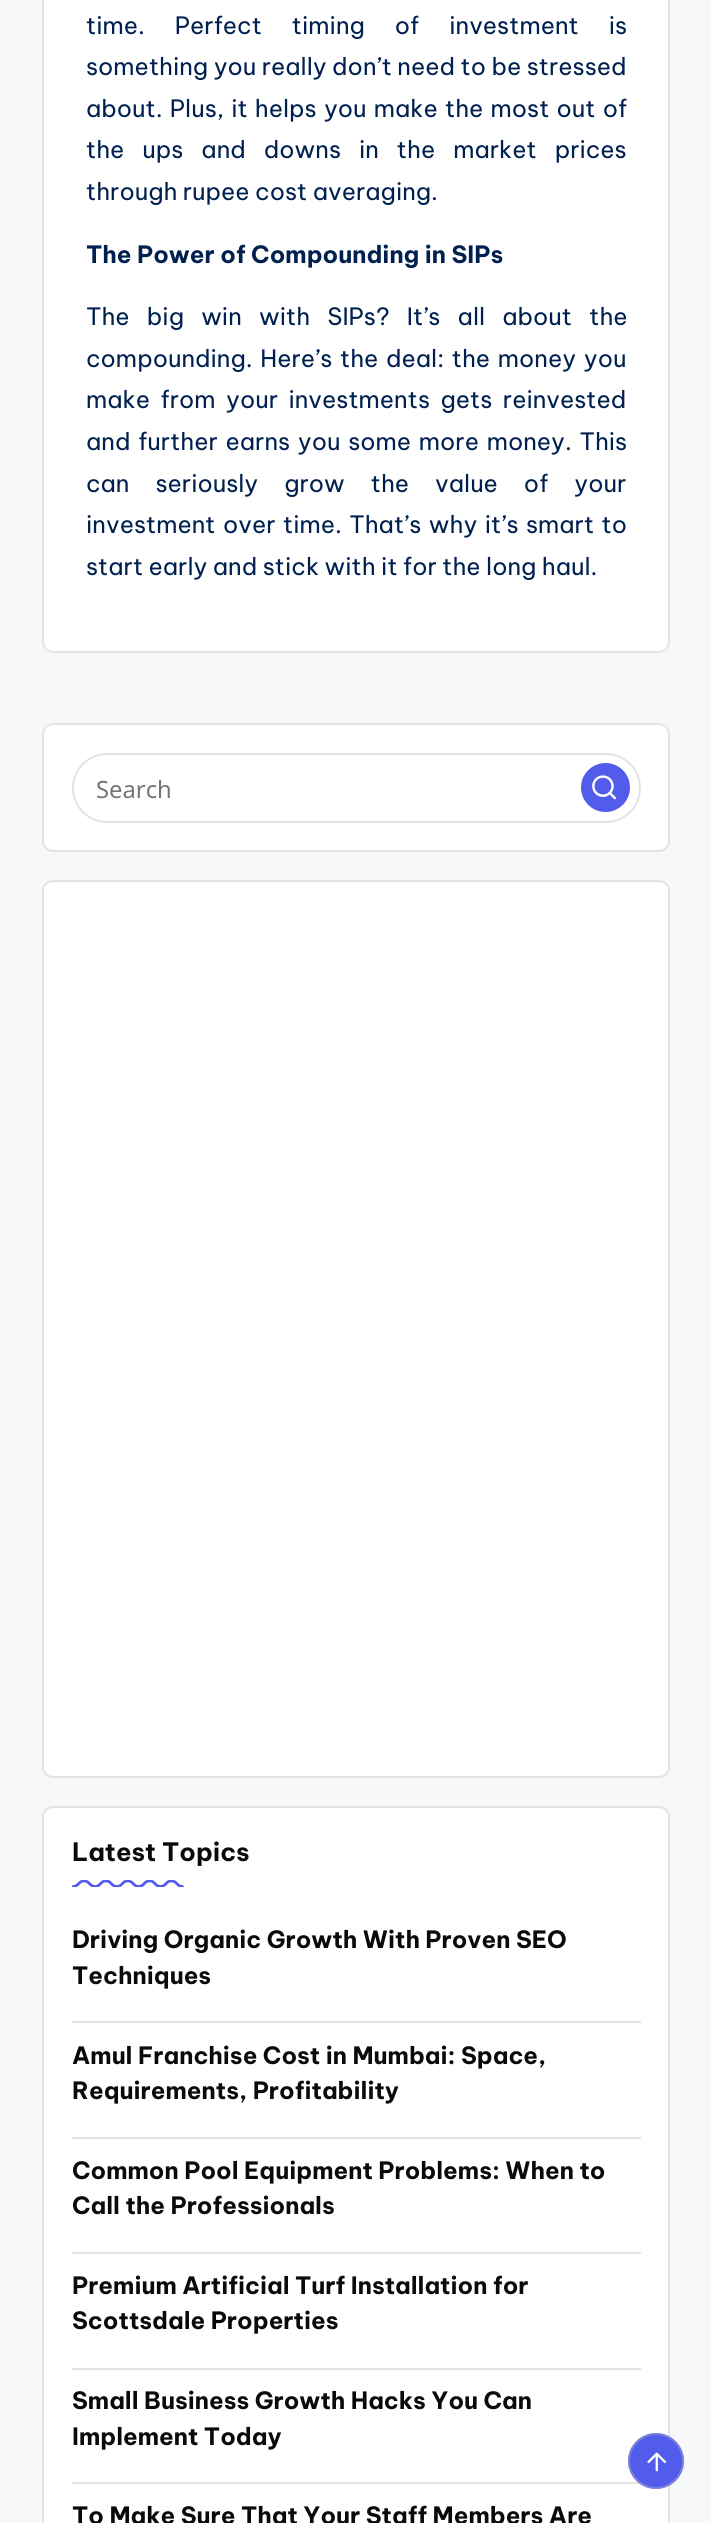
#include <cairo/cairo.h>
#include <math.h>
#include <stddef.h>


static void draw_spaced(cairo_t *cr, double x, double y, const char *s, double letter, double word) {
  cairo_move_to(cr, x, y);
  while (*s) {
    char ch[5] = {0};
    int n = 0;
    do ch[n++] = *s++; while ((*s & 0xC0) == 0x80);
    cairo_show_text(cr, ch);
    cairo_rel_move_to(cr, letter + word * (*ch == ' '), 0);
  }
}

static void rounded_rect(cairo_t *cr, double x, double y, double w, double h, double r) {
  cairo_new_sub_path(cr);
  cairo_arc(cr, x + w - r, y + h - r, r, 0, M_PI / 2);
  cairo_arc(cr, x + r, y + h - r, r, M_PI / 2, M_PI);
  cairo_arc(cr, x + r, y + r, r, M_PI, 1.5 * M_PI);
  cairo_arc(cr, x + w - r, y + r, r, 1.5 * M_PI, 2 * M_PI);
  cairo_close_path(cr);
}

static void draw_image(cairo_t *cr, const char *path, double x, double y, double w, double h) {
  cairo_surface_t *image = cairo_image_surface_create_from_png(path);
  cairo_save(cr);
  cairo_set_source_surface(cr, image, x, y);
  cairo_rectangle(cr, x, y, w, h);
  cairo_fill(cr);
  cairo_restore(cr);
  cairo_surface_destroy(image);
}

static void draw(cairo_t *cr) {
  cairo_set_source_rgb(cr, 247 / 255.0, 248 / 255.0, 249 / 255.0);
  cairo_paint(cr);
  cairo_set_source_rgb(cr, 1, 1, 1);
  rounded_rect(cr, 42, -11, 628, 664, 11);
  cairo_fill(cr);
  rounded_rect(cr, 43, -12, 626, 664, 10);
  cairo_set_source_rgba(cr, 185 / 255.0, 185 / 255.0, 185 / 255.0, 0.4);
  cairo_stroke(cr);
  cairo_set_source_rgb(cr, 1, 1, 1);
  rounded_rect(cr, 42, 723, 628, 129, 11);
  cairo_fill(cr);
  rounded_rect(cr, 43, 724, 626, 127, 10);
  cairo_set_source_rgba(cr, 185 / 255.0, 185 / 255.0, 185 / 255.0, 0.4);
  cairo_stroke(cr);
  rounded_rect(cr, 73, 754, 567, 68, 34);
  cairo_set_source_rgb(cr, 227 / 255.0, 227 / 255.0, 227 / 255.0);
  cairo_stroke(cr);
  cairo_set_source_rgb(cr, 82 / 255.0, 92 / 255.0, 235 / 255.0);
  cairo_arc(cr, 605.5, 787.5, 24.5, 0, 2 * M_PI);
  cairo_fill(cr);
  draw_image(cr, "images/1.png", 592, 775, 25, 25);
  cairo_set_source_rgb(cr, 1, 1, 1);
  rounded_rect(cr, 42, 880, 628, 898, 11);
  cairo_fill(cr);
  rounded_rect(cr, 43, 881, 626, 896, 10);
  cairo_set_source_rgba(cr, 185 / 255.0, 185 / 255.0, 185 / 255.0, 0.4);
  cairo_stroke(cr);
  cairo_set_source_rgb(cr, 1, 1, 1);
  rounded_rect(cr, 42, 1806, 628, 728, 11);
  cairo_fill(cr);
  rounded_rect(cr, 43, 1807, 626, 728, 10);
  cairo_set_source_rgba(cr, 185 / 255.0, 185 / 255.0, 185 / 255.0, 0.4);
  cairo_stroke(cr);
  draw_image(cr, "images/2.png", 72, 1880, 112, 7);
  cairo_set_source_rgb(cr, 227 / 255.0, 227 / 255.0, 227 / 255.0);
  cairo_rectangle(cr, 72, 2021, 569, 2);
  cairo_fill(cr);
  cairo_rectangle(cr, 72, 2137, 569, 2);
  cairo_fill(cr);
  cairo_rectangle(cr, 72, 2252, 569, 2);
  cairo_fill(cr);
  cairo_rectangle(cr, 72, 2368, 569, 2);
  cairo_fill(cr);
  cairo_rectangle(cr, 72, 2482, 569, 2);
  cairo_fill(cr);
  cairo_set_source_rgb(cr, 82 / 255.0, 92 / 255.0, 235 / 255.0);
  cairo_arc(cr, 656, 2461, 28, 0, 2 * M_PI);
  cairo_fill(cr);
  cairo_arc(cr, 656, 2461, 27, 0, 2 * M_PI);
  cairo_set_source_rgba(cr, 185 / 255.0, 185 / 255.0, 185 / 255.0, 0.4);
  cairo_stroke(cr);
  draw_image(cr, "images/3.png", 647, 2452, 20, 20);
  cairo_select_font_face(cr, "Be Vietnam Pro", CAIRO_FONT_SLANT_NORMAL, CAIRO_FONT_WEIGHT_NORMAL);
  cairo_set_font_size(cr, 23.8);
  cairo_set_source_rgb(cr, 0, 32 / 255.0, 80 / 255.0);
  draw_spaced(cr, 86, 34, "time. Perfect timing of investment is", 0, 24.5);
  cairo_move_to(cr, 86, 75);
  cairo_show_text(cr, "something you really don’t need to be stressed");
  draw_spaced(cr, 86, 117, "about. Plus, it helps you make the most out of", 0, 1.75);
  draw_spaced(cr, 86, 158, "the ups and downs in the market prices", 0, 12.5);
  cairo_move_to(cr, 86, 200);
  cairo_show_text(cr, "through rupee cost averaging.");
  cairo_select_font_face(cr, "Be Vietnam Pro", CAIRO_FONT_SLANT_NORMAL, CAIRO_FONT_WEIGHT_BOLD);
  cairo_move_to(cr, 86, 263);
  cairo_show_text(cr, "The Power of Compounding in SIPs");
  cairo_select_font_face(cr, "Be Vietnam Pro", CAIRO_FONT_SLANT_NORMAL, CAIRO_FONT_WEIGHT_NORMAL);
  draw_spaced(cr, 86, 325, "The big win with SIPs? It’s all about the", 0, 11.75);
  draw_spaced(cr, 86, 367, "compounding. Here’s the deal: the money you", 0, 2.25);
  draw_spaced(cr, 86, 408, "make from your investments gets reinvested", 0, 5);
  draw_spaced(cr, 86, 450, "and further earns you some more money. This", 0, 2.25);
  draw_spaced(cr, 86, 492, "can seriously grow the value of your", 0, 20.5);
  draw_spaced(cr, 86, 533, "investment over time. That’s why it’s smart to", 0, 2);
  cairo_move_to(cr, 86, 575);
  cairo_show_text(cr, "start early and stick with it for the long haul.");
  cairo_select_font_face(cr, "Noto Sans", CAIRO_FONT_SLANT_NORMAL, CAIRO_FONT_WEIGHT_NORMAL);
  cairo_set_source_rgb(cr, 117 / 255.0, 117 / 255.0, 117 / 255.0);
  cairo_move_to(cr, 96, 798);
  cairo_show_text(cr, "Search");
  cairo_select_font_face(cr, "Be Vietnam Pro", CAIRO_FONT_SLANT_NORMAL, CAIRO_FONT_WEIGHT_BOLD);
  cairo_set_font_size(cr, 25.25);
  cairo_set_source_rgb(cr, 10 / 255.0, 10 / 255.0, 10 / 255.0);
  cairo_move_to(cr, 72, 1861);
  cairo_show_text(cr, "Latest Topics");
  cairo_set_font_size(cr, 23.8);
  cairo_move_to(cr, 72, 1948);
  cairo_show_text(cr, "Driving Organic Growth With Proven SEO");
  cairo_move_to(cr, 72, 1984);
  cairo_show_text(cr, "Techniques");
  cairo_move_to(cr, 72, 2064);
  cairo_show_text(cr, "Amul Franchise Cost in Mumbai: Space,");
  cairo_move_to(cr, 72, 2099);
  cairo_show_text(cr, "Requirements, Profitability");
  cairo_move_to(cr, 72, 2179);
  cairo_show_text(cr, "Common Pool Equipment Problems: When to");
  cairo_move_to(cr, 72, 2214);
  cairo_show_text(cr, "Call the Professionals");
  cairo_move_to(cr, 72, 2294);
  cairo_show_text(cr, "Premium Artificial Turf Installation for");
  cairo_move_to(cr, 72, 2329);
  cairo_show_text(cr, "Scottsdale Properties");
  cairo_move_to(cr, 72, 2409);
  cairo_show_text(cr, "Small Business Growth Hacks You Can");
  cairo_move_to(cr, 72, 2445);
  cairo_show_text(cr, "Implement Today");
  cairo_move_to(cr, 72, 2524);
  cairo_show_text(cr, "To Make Sure That Your Staff Members Are");
}

int main(void) {
  cairo_surface_t *surface = cairo_image_surface_create(CAIRO_FORMAT_RGB24, 711, 2523);
  cairo_t *cr = cairo_create(surface);
  cairo_font_options_t *options = cairo_font_options_create();
  cairo_font_options_set_hint_metrics(options, CAIRO_HINT_METRICS_OFF);
  cairo_font_options_set_hint_style(options, CAIRO_HINT_STYLE_NONE);
  cairo_set_font_options(cr, options);
  cairo_set_miter_limit(cr, 4);
  draw(cr);
  cairo_surface_write_to_png(surface, "out.png");
  cairo_font_options_destroy(options);
  cairo_destroy(cr);
  cairo_surface_destroy(surface);
  return 0;
}
